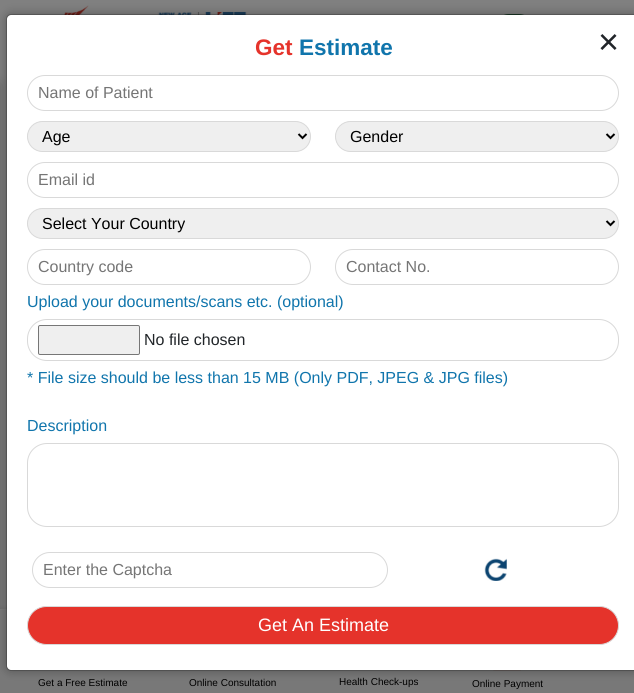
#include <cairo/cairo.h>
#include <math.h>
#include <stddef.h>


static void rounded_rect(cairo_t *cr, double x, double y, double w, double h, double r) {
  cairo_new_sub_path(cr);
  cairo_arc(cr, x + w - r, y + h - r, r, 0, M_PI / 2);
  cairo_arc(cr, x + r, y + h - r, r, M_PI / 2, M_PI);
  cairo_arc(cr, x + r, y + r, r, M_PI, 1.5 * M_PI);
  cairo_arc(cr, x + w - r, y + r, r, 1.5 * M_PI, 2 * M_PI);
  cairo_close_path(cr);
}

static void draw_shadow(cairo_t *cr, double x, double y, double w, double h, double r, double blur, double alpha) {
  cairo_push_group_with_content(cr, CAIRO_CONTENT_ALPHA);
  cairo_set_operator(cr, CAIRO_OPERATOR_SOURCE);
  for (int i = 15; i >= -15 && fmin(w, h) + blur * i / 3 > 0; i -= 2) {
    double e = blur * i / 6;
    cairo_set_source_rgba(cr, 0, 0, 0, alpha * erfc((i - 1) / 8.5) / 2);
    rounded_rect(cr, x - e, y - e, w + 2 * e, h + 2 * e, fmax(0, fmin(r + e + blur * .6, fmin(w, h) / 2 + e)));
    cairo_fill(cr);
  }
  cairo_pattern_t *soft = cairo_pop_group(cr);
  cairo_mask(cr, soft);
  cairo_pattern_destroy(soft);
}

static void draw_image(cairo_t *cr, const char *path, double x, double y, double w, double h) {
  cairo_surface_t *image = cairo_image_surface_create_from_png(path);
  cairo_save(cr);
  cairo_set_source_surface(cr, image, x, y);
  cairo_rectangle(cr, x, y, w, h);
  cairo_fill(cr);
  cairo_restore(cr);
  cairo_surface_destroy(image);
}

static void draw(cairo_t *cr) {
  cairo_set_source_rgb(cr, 128 / 255.0, 128 / 255.0, 128 / 255.0);
  cairo_paint(cr);
  draw_image(cr, "images/1.png", 61, 5, 198, 10);
  cairo_set_source_rgb(cr, 28 / 255.0, 63 / 255.0, 41 / 255.0);
  rounded_rect(cr, 494, 14, 40, 37, 15);
  cairo_fill(cr);
  cairo_set_source_rgb(cr, 0, 0, 0);
  draw_shadow(cr, -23, 84, 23, 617, 0, 7.5, 0.18);
  draw_shadow(cr, 0, 608, 634, 84, 0, 2, 0.08);
  cairo_set_source_rgb(cr, 120 / 255.0, 120 / 255.0, 120 / 255.0);
  cairo_rectangle(cr, 0, 610, 634, 83);
  cairo_fill(cr);
  cairo_set_source_rgb(cr, 124 / 255.0, 124 / 255.0, 124 / 255.0);
  cairo_rectangle(cr, 0, 609, 7, 1);
  cairo_fill(cr);
  draw_image(cr, "images/3.png", 493, 670, 28, 1);
  cairo_set_source_rgb(cr, 0, 0, 0);
  draw_shadow(cr, 6, 14, 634, 657, 5, 5, 0.3);
  cairo_set_source_rgb(cr, 1, 1, 1);
  cairo_new_path(cr);
  cairo_move_to(cr, 11, 15);
  cairo_line_to(cr, 634, 15);
  cairo_line_to(cr, 634, 670);
  cairo_line_to(cr, 11, 670);
  cairo_curve_to(cr, 9, 670, 7, 668, 7, 666);
  cairo_line_to(cr, 7, 19);
  cairo_curve_to(cr, 7, 17, 9, 15, 11, 15);
  cairo_close_path(cr);
  cairo_fill(cr);
  rounded_rect(cr, 6.5, 14.5, 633, 656, 4.5);
  cairo_set_source_rgba(cr, 0, 0, 0, 0.2);
  cairo_set_line_width(cr, 1);
  cairo_stroke(cr);
  rounded_rect(cr, 27.5, 75.5, 591, 35, 17.5);
  cairo_set_source_rgb(cr, 217 / 255.0, 217 / 255.0, 217 / 255.0);
  cairo_stroke(cr);
  cairo_set_source_rgb(cr, 239 / 255.0, 239 / 255.0, 239 / 255.0);
  rounded_rect(cr, 27.5, 121.5, 283, 30, 15);
  cairo_fill_preserve(cr);
  cairo_set_source_rgb(cr, 217 / 255.0, 217 / 255.0, 217 / 255.0);
  cairo_stroke(cr);
  cairo_new_path(cr);
  cairo_move_to(cr, 298.5, 134);
  cairo_line_to(cr, 302.5, 138);
  cairo_line_to(cr, 306.5, 134);
  cairo_set_source_rgb(cr, 0, 0, 0);
  cairo_set_line_width(cr, 2);
  cairo_stroke(cr);
  cairo_set_source_rgb(cr, 239 / 255.0, 239 / 255.0, 239 / 255.0);
  rounded_rect(cr, 335.5, 121.5, 283, 30, 15);
  cairo_fill_preserve(cr);
  cairo_set_source_rgb(cr, 217 / 255.0, 217 / 255.0, 217 / 255.0);
  cairo_set_line_width(cr, 1);
  cairo_stroke(cr);
  cairo_new_path(cr);
  cairo_move_to(cr, 606.5, 134);
  cairo_line_to(cr, 610.5, 138);
  cairo_line_to(cr, 614.5, 134);
  cairo_set_source_rgb(cr, 0, 0, 0);
  cairo_set_line_width(cr, 2);
  cairo_stroke(cr);
  rounded_rect(cr, 27.5, 162.5, 591, 35, 17.5);
  cairo_set_source_rgb(cr, 217 / 255.0, 217 / 255.0, 217 / 255.0);
  cairo_set_line_width(cr, 1);
  cairo_stroke(cr);
  cairo_set_source_rgb(cr, 239 / 255.0, 239 / 255.0, 239 / 255.0);
  rounded_rect(cr, 27.5, 208.5, 591, 30, 15);
  cairo_fill_preserve(cr);
  cairo_set_source_rgb(cr, 217 / 255.0, 217 / 255.0, 217 / 255.0);
  cairo_stroke(cr);
  cairo_new_path(cr);
  cairo_move_to(cr, 606.5, 221);
  cairo_line_to(cr, 610.5, 225);
  cairo_line_to(cr, 614.5, 221);
  cairo_set_source_rgb(cr, 0, 0, 0);
  cairo_set_line_width(cr, 2);
  cairo_stroke(cr);
  rounded_rect(cr, 27.5, 249.5, 283, 35, 17.5);
  cairo_set_source_rgb(cr, 217 / 255.0, 217 / 255.0, 217 / 255.0);
  cairo_set_line_width(cr, 1);
  cairo_stroke(cr);
  rounded_rect(cr, 335.5, 249.5, 283, 35, 17.5);
  cairo_stroke(cr);
  rounded_rect(cr, 27.5, 319.5, 591, 41, 19.5);
  cairo_stroke(cr);
  cairo_set_source_rgb(cr, 239 / 255.0, 239 / 255.0, 239 / 255.0);
  rounded_rect(cr, 38.5, 325.5, 101, 29, 1.5);
  cairo_fill_preserve(cr);
  cairo_set_source_rgb(cr, 118 / 255.0, 118 / 255.0, 118 / 255.0);
  cairo_stroke(cr);
  rounded_rect(cr, 27.5, 443.5, 591, 83, 19.5);
  cairo_set_source_rgb(cr, 217 / 255.0, 217 / 255.0, 217 / 255.0);
  cairo_stroke(cr);
  rounded_rect(cr, 32.5, 552.5, 355, 35, 17.5);
  cairo_stroke(cr);
  draw_image(cr, "images/2.png", 484, 558, 23, 23);
  cairo_set_source_rgb(cr, 229 / 255.0, 51 / 255.0, 43 / 255.0);
  rounded_rect(cr, 27.5, 606.5, 591, 38, 19);
  cairo_fill_preserve(cr);
  cairo_set_source_rgb(cr, 217 / 255.0, 217 / 255.0, 217 / 255.0);
  cairo_stroke(cr);
  cairo_select_font_face(cr, "Liberation Sans", CAIRO_FONT_SLANT_NORMAL, CAIRO_FONT_WEIGHT_BOLD);
  cairo_set_font_size(cr, 22.5);
  cairo_set_source_rgb(cr, 229 / 255.0, 51 / 255.0, 43 / 255.0);
  cairo_move_to(cr, 255, 55);
  cairo_show_text(cr, "Get");
  cairo_set_source_rgb(cr, 16 / 255.0, 117 / 255.0, 172 / 255.0);
  cairo_move_to(cr, 299, 55);
  cairo_show_text(cr, "Estimate");
  cairo_select_font_face(cr, "Liberation Sans", CAIRO_FONT_SLANT_NORMAL, CAIRO_FONT_WEIGHT_NORMAL);
  cairo_set_font_size(cr, 36);
  cairo_set_source_rgb(cr, 33 / 255.0, 37 / 255.0, 41 / 255.0);
  cairo_move_to(cr, 598, 54);
  cairo_show_text(cr, "×");
  cairo_set_font_size(cr, 16);
  cairo_set_source_rgb(cr, 117 / 255.0, 117 / 255.0, 117 / 255.0);
  cairo_move_to(cr, 38, 98);
  cairo_show_text(cr, "Name of Patient");
  cairo_set_source_rgb(cr, 0, 0, 0);
  cairo_move_to(cr, 42, 142);
  cairo_show_text(cr, "Age");
  cairo_move_to(cr, 350, 142);
  cairo_show_text(cr, "Gender");
  cairo_set_source_rgb(cr, 117 / 255.0, 117 / 255.0, 117 / 255.0);
  cairo_move_to(cr, 38, 185);
  cairo_show_text(cr, "Email id");
  cairo_set_source_rgb(cr, 0, 0, 0);
  cairo_move_to(cr, 42, 229);
  cairo_show_text(cr, "Select Your Country");
  cairo_set_source_rgb(cr, 117 / 255.0, 117 / 255.0, 117 / 255.0);
  cairo_move_to(cr, 38, 272);
  cairo_show_text(cr, "Country code");
  cairo_move_to(cr, 346, 272);
  cairo_show_text(cr, "Contact No.");
  cairo_set_source_rgb(cr, 16 / 255.0, 117 / 255.0, 172 / 255.0);
  cairo_move_to(cr, 27, 307);
  cairo_show_text(cr, "Upload your documents/scans etc. (optional)");
  cairo_set_source_rgb(cr, 33 / 255.0, 37 / 255.0, 41 / 255.0);
  cairo_move_to(cr, 144, 345);
  cairo_show_text(cr, "No file chosen");
  cairo_set_source_rgb(cr, 16 / 255.0, 117 / 255.0, 172 / 255.0);
  cairo_move_to(cr, 27, 383);
  cairo_show_text(cr, "* File size should be less than 15 MB (Only PDF, JPEG & JPG files)");
  cairo_move_to(cr, 27, 431);
  cairo_show_text(cr, "Description");
  cairo_set_source_rgb(cr, 117 / 255.0, 117 / 255.0, 117 / 255.0);
  cairo_move_to(cr, 43, 575);
  cairo_show_text(cr, "Enter the Captcha");
  cairo_set_font_size(cr, 18);
  cairo_set_source_rgb(cr, 1, 1, 1);
  cairo_move_to(cr, 258, 631);
  cairo_show_text(cr, "Get An Estimate");
  cairo_set_font_size(cr, 10);
  cairo_set_source_rgb(cr, 0, 0, 0);
  cairo_move_to(cr, 38, 686);
  cairo_show_text(cr, "Get a Free Estimate");
  cairo_move_to(cr, 189, 686);
  cairo_show_text(cr, "Online Consultation");
  cairo_move_to(cr, 339, 685);
  cairo_show_text(cr, "Health Check-ups");
  cairo_move_to(cr, 472, 687);
  cairo_show_text(cr, "Online Payment");
}

int main(void) {
  cairo_surface_t *surface = cairo_image_surface_create(CAIRO_FORMAT_RGB24, 634, 693);
  cairo_t *cr = cairo_create(surface);
  cairo_font_options_t *options = cairo_font_options_create();
  cairo_font_options_set_hint_metrics(options, CAIRO_HINT_METRICS_OFF);
  cairo_font_options_set_hint_style(options, CAIRO_HINT_STYLE_NONE);
  cairo_set_font_options(cr, options);
  cairo_set_miter_limit(cr, 4);
  draw(cr);
  cairo_surface_write_to_png(surface, "out.png");
  cairo_font_options_destroy(options);
  cairo_destroy(cr);
  cairo_surface_destroy(surface);
  return 0;
}
